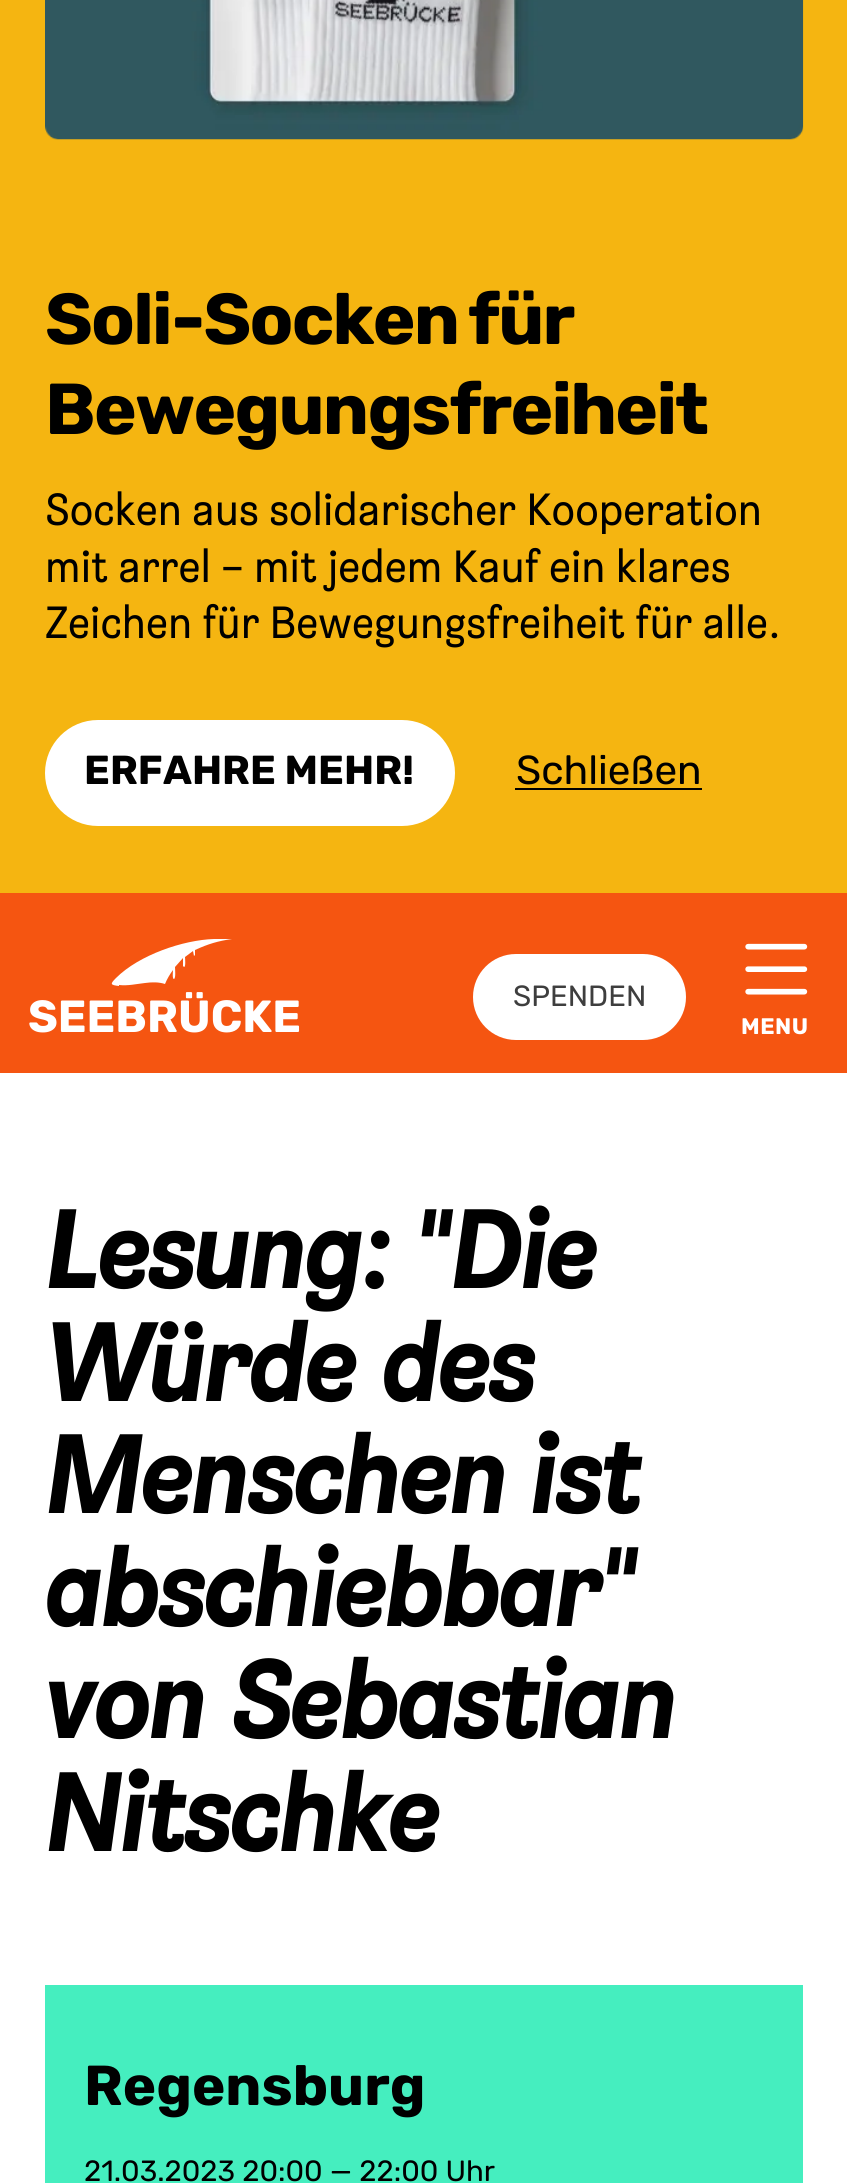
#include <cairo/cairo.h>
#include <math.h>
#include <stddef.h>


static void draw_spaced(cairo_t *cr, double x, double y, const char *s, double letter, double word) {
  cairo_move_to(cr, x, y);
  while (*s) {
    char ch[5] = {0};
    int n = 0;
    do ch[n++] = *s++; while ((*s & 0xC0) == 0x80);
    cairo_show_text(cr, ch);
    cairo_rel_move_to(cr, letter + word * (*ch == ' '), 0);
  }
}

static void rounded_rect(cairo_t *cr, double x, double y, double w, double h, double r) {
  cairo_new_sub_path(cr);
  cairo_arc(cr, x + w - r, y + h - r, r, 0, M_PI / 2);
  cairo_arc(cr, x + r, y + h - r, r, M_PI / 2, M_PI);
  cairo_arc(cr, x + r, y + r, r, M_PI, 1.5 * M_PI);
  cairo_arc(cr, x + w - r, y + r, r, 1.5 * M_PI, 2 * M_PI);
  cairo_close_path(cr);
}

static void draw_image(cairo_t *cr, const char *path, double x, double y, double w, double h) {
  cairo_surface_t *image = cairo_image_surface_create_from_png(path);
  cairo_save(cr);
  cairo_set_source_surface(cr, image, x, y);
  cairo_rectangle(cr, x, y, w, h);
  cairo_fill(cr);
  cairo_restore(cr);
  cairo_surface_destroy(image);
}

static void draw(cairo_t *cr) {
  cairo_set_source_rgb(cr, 1, 1, 1);
  cairo_paint(cr);
  cairo_set_source_rgb(cr, 245 / 255.0, 181 / 255.0, 17 / 255.0);
  cairo_rectangle(cr, 0, 0, 847, 893);
  cairo_fill(cr);
  draw_image(cr, "images/1.png", 45, 0, 759, 140);
  cairo_set_source_rgb(cr, 1, 1, 1);
  rounded_rect(cr, 45, 720, 410, 106, 53);
  cairo_fill(cr);
  cairo_set_source_rgb(cr, 0, 0, 0);
  cairo_rectangle(cr, 515, 788, 187, 2);
  cairo_fill(cr);
  cairo_set_source_rgb(cr, 245 / 255.0, 85 / 255.0, 17 / 255.0);
  cairo_rectangle(cr, 0, 893, 847, 180);
  cairo_fill(cr);
  cairo_set_source_rgb(cr, 1, 1, 1);
  cairo_new_path(cr);
  cairo_move_to(cr, 119, 986);
  cairo_curve_to(cr, 110, 985, 110, 984, 116, 978);
  cairo_curve_to(cr, 139, 955, 183, 940, 214, 939);
  cairo_line_to(cr, 232, 939);
  cairo_curve_to(cr, 218, 941, 208, 944, 195, 950);
  cairo_line_to(cr, 195, 955);
  cairo_line_to(cr, 194, 956);
  cairo_line_to(cr, 193, 951);
  cairo_line_to(cr, 185, 957);
  cairo_curve_to(cr, 185, 958, 186, 967, 184, 967);
  cairo_line_to(cr, 183, 966);
  cairo_line_to(cr, 183, 958);
  cairo_line_to(cr, 175, 967);
  cairo_curve_to(cr, 175, 969, 176, 978, 174, 979);
  cairo_curve_to(cr, 172, 979, 173, 971, 173, 970);
  cairo_curve_to(cr, 170, 974, 167, 979, 165, 984);
  cairo_curve_to(cr, 159, 982, 152, 982, 145, 983);
  cairo_curve_to(cr, 136, 984, 128, 986, 119, 985);
  cairo_close_path(cr);
  cairo_fill(cr);
  rounded_rect(cr, 473, 954, 213, 86, 43);
  cairo_fill(cr);
  draw_image(cr, "images/2.png", 745, 943, 63, 52);
  cairo_set_source_rgb(cr, 69 / 255.0, 238 / 255.0, 191 / 255.0);
  cairo_rectangle(cr, 45, 1985, 758, 198);
  cairo_fill(cr);
  cairo_select_font_face(cr, "Rubik", CAIRO_FONT_SLANT_NORMAL, CAIRO_FONT_WEIGHT_BOLD);
  cairo_set_font_size(cr, 72);
  cairo_set_source_rgb(cr, 0, 0, 0);
  draw_spaced(cr, 45, 344, "Soli-Socken für", -1.75, -4);
  draw_spaced(cr, 45, 434, "Bewegungsfreiheit", -1.75, 0);
  cairo_select_font_face(cr, "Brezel", CAIRO_FONT_SLANT_NORMAL, CAIRO_FONT_WEIGHT_NORMAL);
  cairo_set_font_size(cr, 45);
  cairo_move_to(cr, 45, 525);
  cairo_show_text(cr, "Socken aus solidarischer Kooperation");
  cairo_move_to(cr, 45, 582);
  cairo_show_text(cr, "mit arrel – mit jedem Kauf ein klares");
  cairo_move_to(cr, 45, 638);
  cairo_show_text(cr, "Zeichen für Bewegungsfreiheit für alle.");
  cairo_select_font_face(cr, "Rubik", CAIRO_FONT_SLANT_NORMAL, CAIRO_FONT_WEIGHT_BOLD);
  cairo_set_font_size(cr, 40.5);
  cairo_move_to(cr, 84, 784);
  cairo_show_text(cr, "ERFAHRE MEHR!");
  cairo_select_font_face(cr, "Rubik", CAIRO_FONT_SLANT_NORMAL, CAIRO_FONT_WEIGHT_NORMAL);
  cairo_move_to(cr, 516, 784);
  cairo_show_text(cr, "Schließen");
  cairo_select_font_face(cr, "Rubik", CAIRO_FONT_SLANT_NORMAL, CAIRO_FONT_WEIGHT_BOLD);
  cairo_set_font_size(cr, 45);
  cairo_set_source_rgb(cr, 1, 1, 1);
  cairo_move_to(cr, 28, 1032);
  cairo_show_text(cr, "SEEBRÜCKE");
  cairo_select_font_face(cr, "Rubik", CAIRO_FONT_SLANT_NORMAL, CAIRO_FONT_WEIGHT_NORMAL);
  cairo_set_font_size(cr, 29.25);
  cairo_set_source_rgb(cr, 62 / 255.0, 62 / 255.0, 62 / 255.0);
  cairo_move_to(cr, 513, 1006);
  cairo_show_text(cr, "SPENDEN");
  cairo_select_font_face(cr, "Rubik", CAIRO_FONT_SLANT_NORMAL, CAIRO_FONT_WEIGHT_BOLD);
  cairo_set_font_size(cr, 22.5);
  cairo_set_source_rgb(cr, 1, 1, 1);
  draw_spaced(cr, 741, 1034, "MENU", 0.5, 0);
  cairo_select_font_face(cr, "Brezel", CAIRO_FONT_SLANT_ITALIC, CAIRO_FONT_WEIGHT_BOLD);
  cairo_set_font_size(cr, 112.5);
  cairo_set_source_rgb(cr, 0, 0, 0);
  draw_spaced(cr, 45, 1288, "Lesung: \"Die", -2.75, 0);
  draw_spaced(cr, 45, 1401, "Würde des", -2.75, 1);
  draw_spaced(cr, 45, 1513, "Menschen ist", -2.75, -1);
  draw_spaced(cr, 45, 1626, "abschiebbar\"", -2.75, 0);
  draw_spaced(cr, 45, 1738, "von Sebastian", -2.75, 1);
  draw_spaced(cr, 45, 1851, "Nitschke", -2.75, 0);
  cairo_select_font_face(cr, "Rubik", CAIRO_FONT_SLANT_NORMAL, CAIRO_FONT_WEIGHT_BOLD);
  cairo_set_font_size(cr, 56.25);
  cairo_move_to(cr, 84, 2105);
  cairo_show_text(cr, "Regensburg");
  cairo_select_font_face(cr, "Rubik", CAIRO_FONT_SLANT_NORMAL, CAIRO_FONT_WEIGHT_NORMAL);
  cairo_set_font_size(cr, 29.25);
  cairo_move_to(cr, 84, 2181);
  cairo_show_text(cr, "21.03.2023 20:00 — 22:00 Uhr");
}

int main(void) {
  cairo_surface_t *surface = cairo_image_surface_create(CAIRO_FORMAT_RGB24, 847, 2183);
  cairo_t *cr = cairo_create(surface);
  cairo_font_options_t *options = cairo_font_options_create();
  cairo_font_options_set_hint_metrics(options, CAIRO_HINT_METRICS_OFF);
  cairo_font_options_set_hint_style(options, CAIRO_HINT_STYLE_NONE);
  cairo_set_font_options(cr, options);
  cairo_set_miter_limit(cr, 4);
  draw(cr);
  cairo_surface_write_to_png(surface, "out.png");
  cairo_font_options_destroy(options);
  cairo_destroy(cr);
  cairo_surface_destroy(surface);
  return 0;
}
